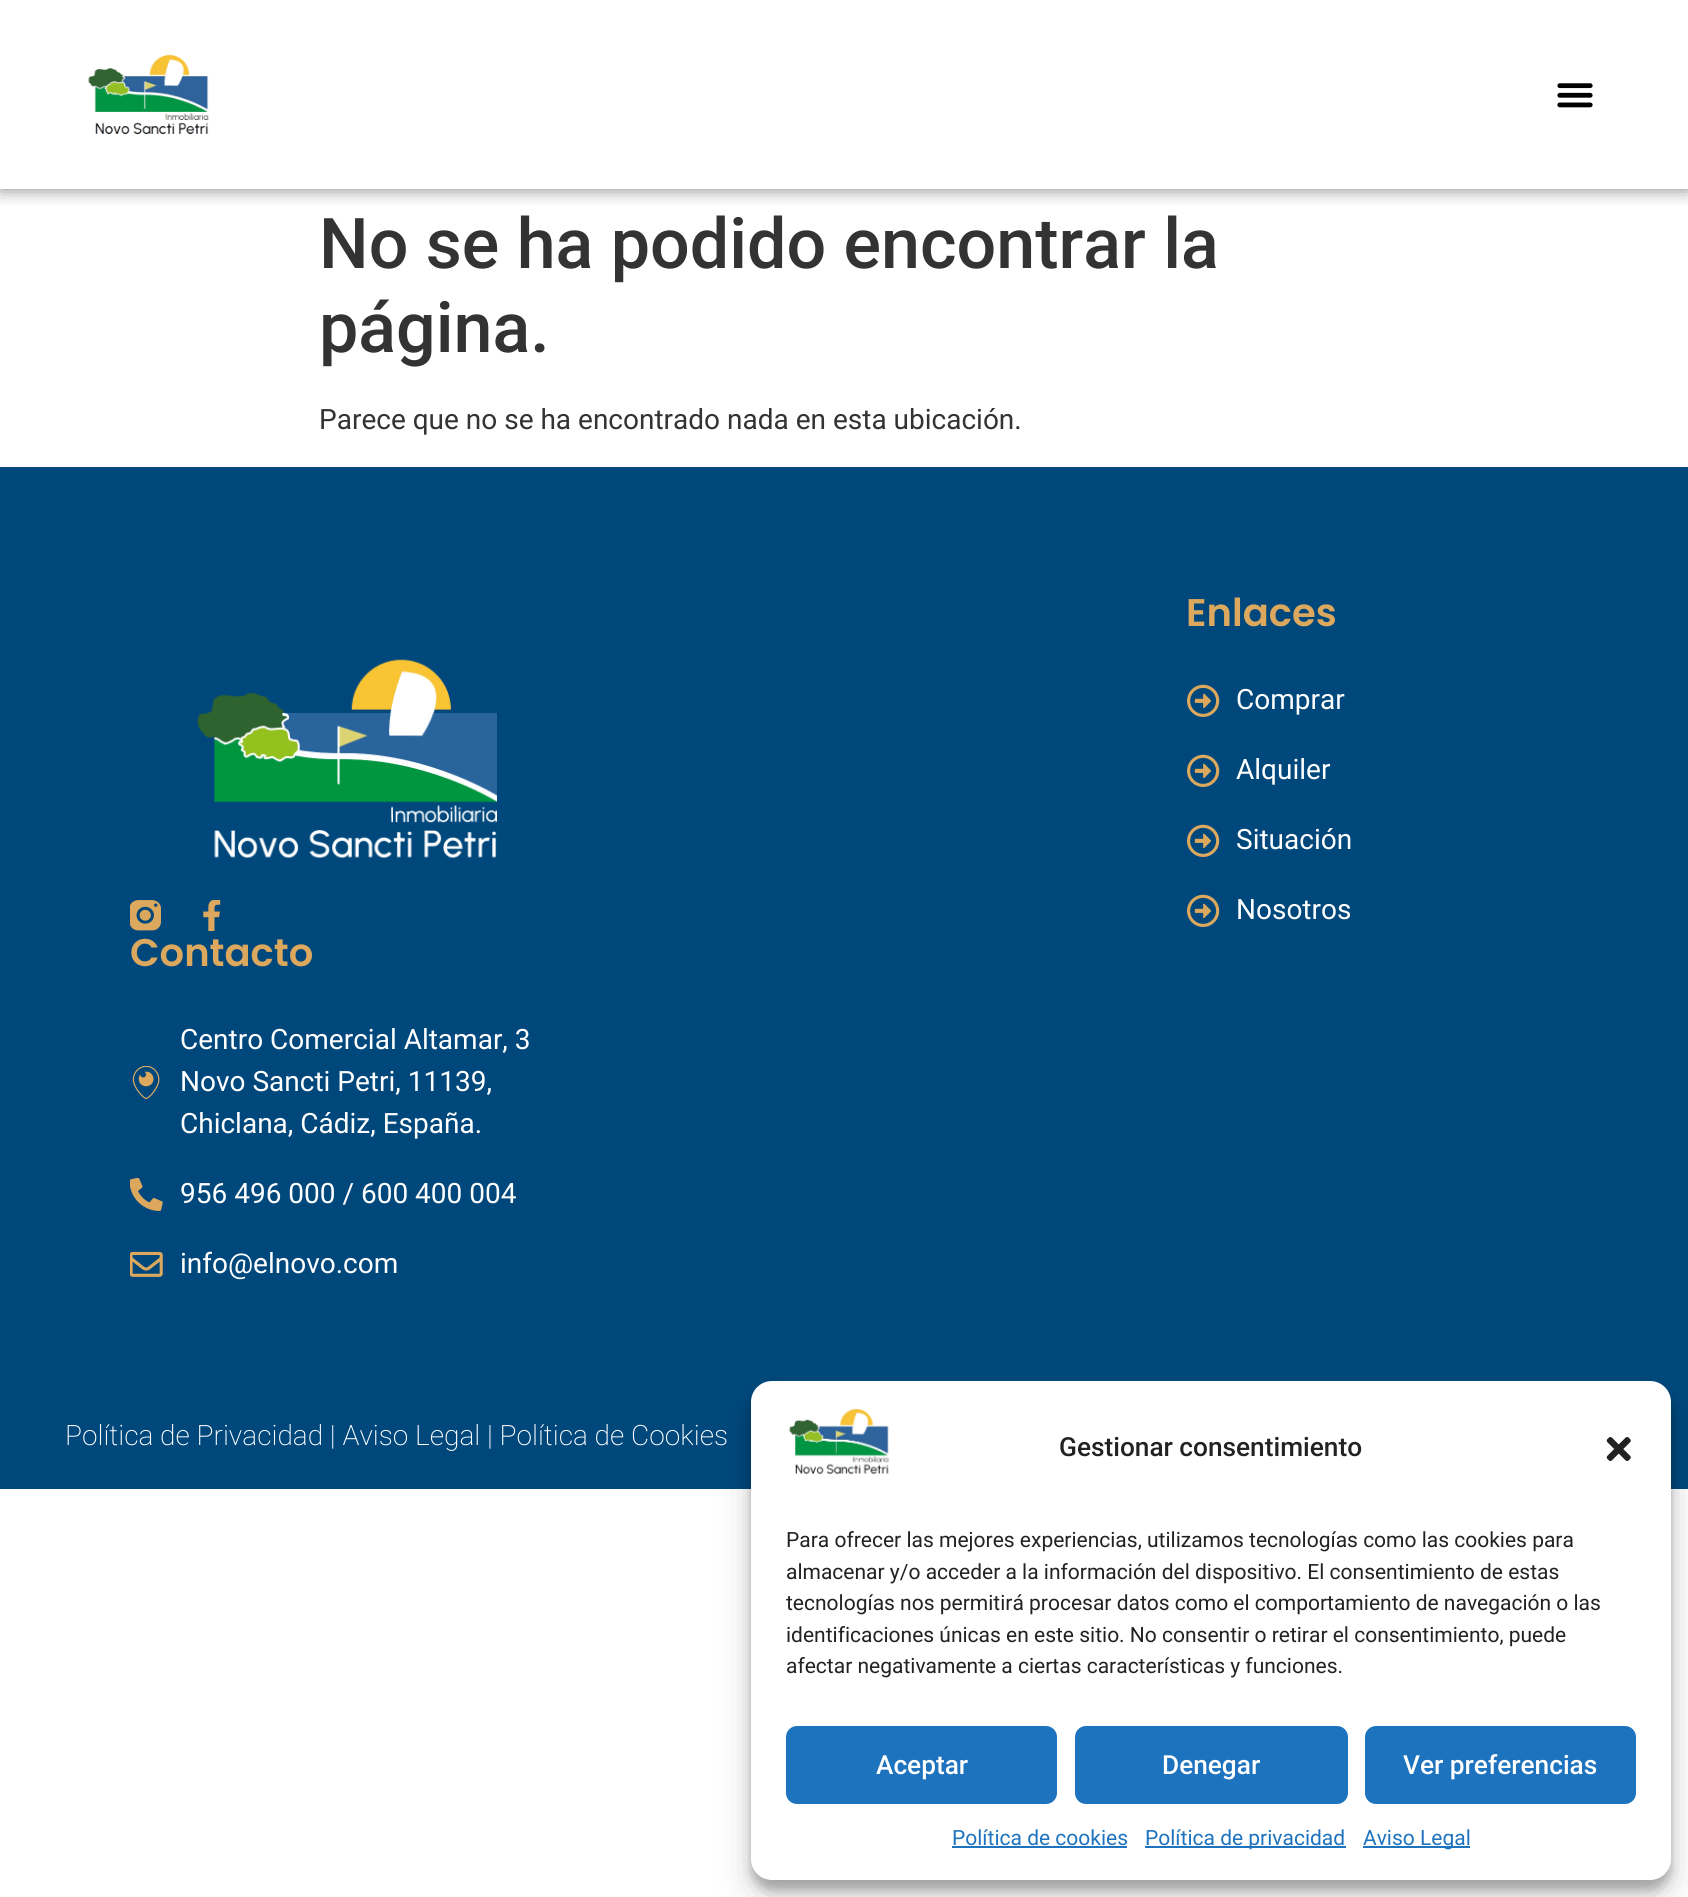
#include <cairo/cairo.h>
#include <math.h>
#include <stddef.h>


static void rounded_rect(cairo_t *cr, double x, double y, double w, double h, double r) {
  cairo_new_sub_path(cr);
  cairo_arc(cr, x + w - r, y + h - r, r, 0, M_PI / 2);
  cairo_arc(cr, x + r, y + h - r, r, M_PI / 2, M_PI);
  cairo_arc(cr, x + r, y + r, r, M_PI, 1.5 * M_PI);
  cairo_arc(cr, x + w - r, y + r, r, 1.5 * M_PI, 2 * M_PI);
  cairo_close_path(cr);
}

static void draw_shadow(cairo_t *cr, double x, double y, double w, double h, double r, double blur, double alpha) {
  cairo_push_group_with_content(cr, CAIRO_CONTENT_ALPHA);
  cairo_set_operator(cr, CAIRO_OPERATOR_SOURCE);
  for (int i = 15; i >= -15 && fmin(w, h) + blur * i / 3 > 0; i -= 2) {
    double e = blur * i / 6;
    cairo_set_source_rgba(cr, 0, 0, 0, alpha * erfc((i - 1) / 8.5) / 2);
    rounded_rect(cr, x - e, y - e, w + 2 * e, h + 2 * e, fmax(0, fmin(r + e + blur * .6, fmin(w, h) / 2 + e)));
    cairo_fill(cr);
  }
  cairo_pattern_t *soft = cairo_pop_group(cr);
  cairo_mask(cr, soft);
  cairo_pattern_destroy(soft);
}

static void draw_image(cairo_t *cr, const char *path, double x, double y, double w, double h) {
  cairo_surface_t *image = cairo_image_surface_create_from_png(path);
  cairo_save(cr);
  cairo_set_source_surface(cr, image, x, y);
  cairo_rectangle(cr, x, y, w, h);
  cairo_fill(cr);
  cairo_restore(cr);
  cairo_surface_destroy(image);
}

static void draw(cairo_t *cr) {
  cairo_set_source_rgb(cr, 1, 1, 1);
  cairo_paint(cr);
  cairo_save(cr);
  cairo_rectangle(cr, 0, 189, 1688, 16);
  cairo_clip(cr);
  cairo_set_source_rgb(cr, 0, 0, 0);
  draw_shadow(cr, 0, 0, 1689, 189, 0, 9, 0.5);
  cairo_restore(cr);
  draw_image(cr, "images/1.png", 88, 54, 121, 81);
  draw_image(cr, "images/2.png", 1557, 83, 36, 25);
  cairo_set_source_rgb(cr, 0, 72 / 255.0, 124 / 255.0);
  cairo_rectangle(cr, 0, 467, 1688, 1022);
  cairo_fill(cr);
  draw_image(cr, "images/3.png", 197, 659, 300, 199);
  draw_image(cr, "images/4.png", 130, 900, 31, 31);
  draw_image(cr, "images/5.png", 203, 900, 18, 31);
  draw_image(cr, "images/6.png", 1187, 684, 33, 33);
  draw_image(cr, "images/6.png", 1187, 754, 33, 33);
  draw_image(cr, "images/6.png", 1187, 824, 33, 33);
  draw_image(cr, "images/6.png", 1187, 894, 33, 33);
  draw_image(cr, "images/7.png", 132, 1066, 28, 33);
  draw_image(cr, "images/8.png", 130, 1178, 33, 33);
  draw_image(cr, "images/9.png", 130, 1251, 33, 26);
  cairo_set_source_rgb(cr, 0, 0, 0);
  draw_shadow(cr, 751, 1391, 920, 499, 21, 5, 0.23);
  draw_shadow(cr, 751, 1398, 920, 499, 21, 17.5, 0.19);
  cairo_set_source_rgb(cr, 1, 1, 1);
  rounded_rect(cr, 751, 1381, 920, 499, 21);
  cairo_fill(cr);
  draw_image(cr, "images/10.png", 789, 1408, 101, 67);
  draw_image(cr, "images/11.png", 1606, 1437, 25, 24);
  cairo_set_source_rgb(cr, 30 / 255.0, 115 / 255.0, 190 / 255.0);
  rounded_rect(cr, 787, 1727, 269, 76, 10);
  cairo_fill_preserve(cr);
  cairo_stroke(cr);
  rounded_rect(cr, 1076, 1727, 271, 76, 10);
  cairo_fill_preserve(cr);
  cairo_stroke(cr);
  rounded_rect(cr, 1366, 1727, 269, 76, 10);
  cairo_fill_preserve(cr);
  cairo_stroke(cr);
  cairo_rectangle(cr, 952, 1846, 175, 2);
  cairo_fill(cr);
  cairo_rectangle(cr, 1145, 1846, 201, 2);
  cairo_fill(cr);
  cairo_rectangle(cr, 1363, 1846, 107, 2);
  cairo_fill(cr);
  cairo_select_font_face(cr, "Roboto Medium", CAIRO_FONT_SLANT_NORMAL, CAIRO_FONT_WEIGHT_NORMAL);
  cairo_set_font_size(cr, 70);
  cairo_set_source_rgb(cr, 51 / 255.0, 51 / 255.0, 51 / 255.0);
  cairo_move_to(cr, 319, 268);
  cairo_show_text(cr, "No se ha podido encontrar la");
  cairo_move_to(cr, 319, 352);
  cairo_show_text(cr, "página.");
  cairo_select_font_face(cr, "Roboto", CAIRO_FONT_SLANT_NORMAL, CAIRO_FONT_WEIGHT_NORMAL);
  cairo_set_font_size(cr, 28);
  cairo_move_to(cr, 319, 429);
  cairo_show_text(cr, "Parece que no se ha encontrado nada en esta ubicación.");
  cairo_select_font_face(cr, "Poppins SemiBold", CAIRO_FONT_SLANT_NORMAL, CAIRO_FONT_WEIGHT_NORMAL);
  cairo_set_font_size(cr, 38.5);
  cairo_set_source_rgb(cr, 220 / 255.0, 168 / 255.0, 94 / 255.0);
  cairo_move_to(cr, 1186, 626);
  cairo_show_text(cr, "Enlaces");
  cairo_select_font_face(cr, "Roboto", CAIRO_FONT_SLANT_NORMAL, CAIRO_FONT_WEIGHT_NORMAL);
  cairo_set_font_size(cr, 28);
  cairo_set_source_rgb(cr, 1, 1, 1);
  cairo_move_to(cr, 1236, 709);
  cairo_show_text(cr, "Comprar");
  cairo_move_to(cr, 1236, 779);
  cairo_show_text(cr, "Alquiler");
  cairo_move_to(cr, 1236, 849);
  cairo_show_text(cr, "Situación");
  cairo_move_to(cr, 1236, 919);
  cairo_show_text(cr, "Nosotros");
  cairo_select_font_face(cr, "Poppins SemiBold", CAIRO_FONT_SLANT_NORMAL, CAIRO_FONT_WEIGHT_NORMAL);
  cairo_set_font_size(cr, 38.5);
  cairo_set_source_rgb(cr, 220 / 255.0, 168 / 255.0, 94 / 255.0);
  cairo_move_to(cr, 130, 966);
  cairo_show_text(cr, "Contacto");
  cairo_select_font_face(cr, "Roboto", CAIRO_FONT_SLANT_NORMAL, CAIRO_FONT_WEIGHT_NORMAL);
  cairo_set_font_size(cr, 28);
  cairo_set_source_rgb(cr, 1, 1, 1);
  cairo_move_to(cr, 180, 1049);
  cairo_show_text(cr, "Centro Comercial Altamar, 3");
  cairo_move_to(cr, 180, 1091);
  cairo_show_text(cr, "Novo Sancti Petri, 11139,");
  cairo_move_to(cr, 180, 1133);
  cairo_show_text(cr, "Chiclana, Cádiz, España.");
  cairo_move_to(cr, 180, 1203);
  cairo_show_text(cr, "956 496 000 / 600 400 004");
  cairo_move_to(cr, 180, 1273);
  cairo_show_text(cr, "info@elnovo.com");
  cairo_select_font_face(cr, "Roboto ExtraLight", CAIRO_FONT_SLANT_NORMAL, CAIRO_FONT_WEIGHT_NORMAL);
  cairo_move_to(cr, 65, 1445);
  cairo_show_text(cr, "Política de Privacidad | Aviso Legal | Política de Cookies");
  cairo_select_font_face(cr, "Roboto Medium", CAIRO_FONT_SLANT_NORMAL, CAIRO_FONT_WEIGHT_NORMAL);
  cairo_set_font_size(cr, 26.25);
  cairo_set_source_rgb(cr, 34 / 255.0, 34 / 255.0, 34 / 255.0);
  cairo_move_to(cr, 1059, 1456);
  cairo_show_text(cr, "Gestionar consentimiento");
  cairo_select_font_face(cr, "Roboto", CAIRO_FONT_SLANT_NORMAL, CAIRO_FONT_WEIGHT_NORMAL);
  cairo_set_font_size(cr, 21);
  cairo_move_to(cr, 786, 1547);
  cairo_show_text(cr, "Para ofrecer las mejores experiencias, utilizamos tecnologías como las cookies para");
  cairo_move_to(cr, 786, 1579);
  cairo_show_text(cr, "almacenar y/o acceder a la información del dispositivo. El consentimiento de estas");
  cairo_move_to(cr, 786, 1610);
  cairo_show_text(cr, "tecnologías nos permitirá procesar datos como el comportamiento de navegación o las");
  cairo_move_to(cr, 786, 1642);
  cairo_show_text(cr, "identificaciones únicas en este sitio. No consentir o retirar el consentimiento, puede");
  cairo_move_to(cr, 786, 1673);
  cairo_show_text(cr, "afectar negativamente a ciertas características y funciones.");
  cairo_select_font_face(cr, "Roboto Medium", CAIRO_FONT_SLANT_NORMAL, CAIRO_FONT_WEIGHT_NORMAL);
  cairo_set_font_size(cr, 26.25);
  cairo_set_source_rgb(cr, 1, 1, 1);
  cairo_move_to(cr, 876, 1774);
  cairo_show_text(cr, "Aceptar");
  cairo_move_to(cr, 1162, 1774);
  cairo_show_text(cr, "Denegar");
  cairo_move_to(cr, 1403, 1774);
  cairo_show_text(cr, "Ver preferencias");
  cairo_select_font_face(cr, "Roboto", CAIRO_FONT_SLANT_NORMAL, CAIRO_FONT_WEIGHT_NORMAL);
  cairo_set_font_size(cr, 21);
  cairo_set_source_rgb(cr, 30 / 255.0, 115 / 255.0, 190 / 255.0);
  cairo_move_to(cr, 952, 1845);
  cairo_show_text(cr, "Política de cookies");
  cairo_move_to(cr, 1145, 1845);
  cairo_show_text(cr, "Política de privacidad");
  cairo_move_to(cr, 1363, 1845);
  cairo_show_text(cr, "Aviso Legal");
}

int main(void) {
  cairo_surface_t *surface = cairo_image_surface_create(CAIRO_FORMAT_RGB24, 1688, 1897);
  cairo_t *cr = cairo_create(surface);
  cairo_font_options_t *options = cairo_font_options_create();
  cairo_font_options_set_hint_metrics(options, CAIRO_HINT_METRICS_OFF);
  cairo_font_options_set_hint_style(options, CAIRO_HINT_STYLE_NONE);
  cairo_set_font_options(cr, options);
  cairo_set_miter_limit(cr, 4);
  draw(cr);
  cairo_surface_write_to_png(surface, "out.png");
  cairo_font_options_destroy(options);
  cairo_destroy(cr);
  cairo_surface_destroy(surface);
  return 0;
}
